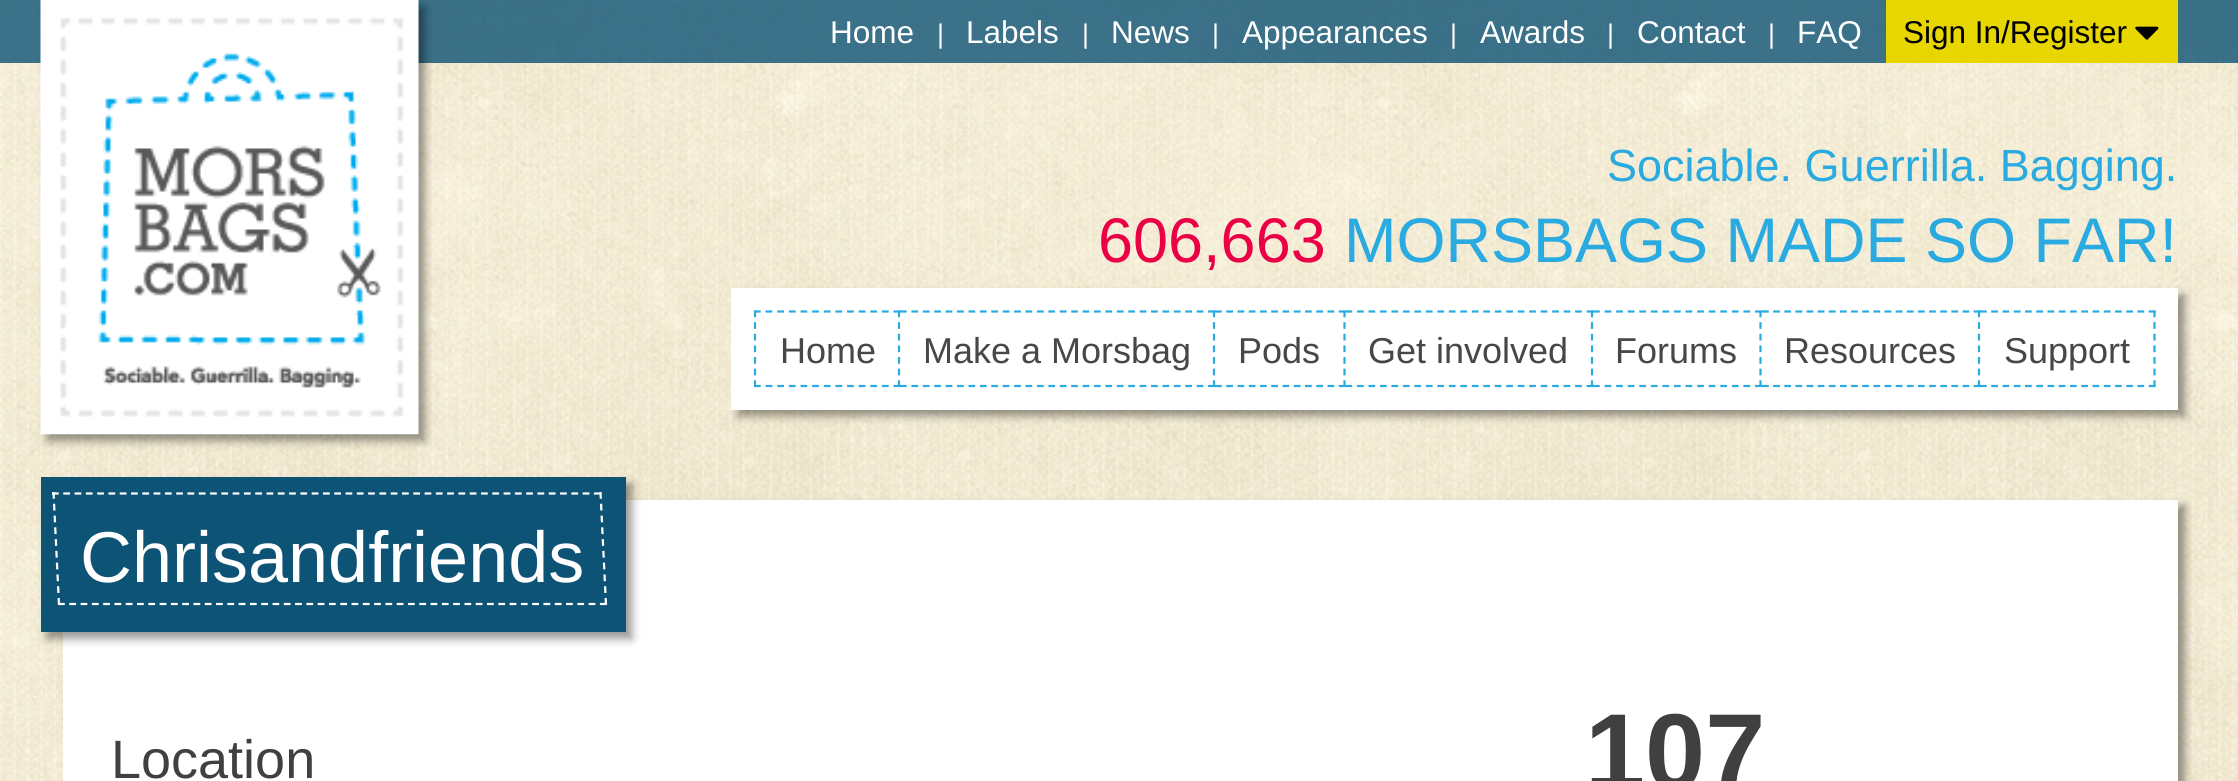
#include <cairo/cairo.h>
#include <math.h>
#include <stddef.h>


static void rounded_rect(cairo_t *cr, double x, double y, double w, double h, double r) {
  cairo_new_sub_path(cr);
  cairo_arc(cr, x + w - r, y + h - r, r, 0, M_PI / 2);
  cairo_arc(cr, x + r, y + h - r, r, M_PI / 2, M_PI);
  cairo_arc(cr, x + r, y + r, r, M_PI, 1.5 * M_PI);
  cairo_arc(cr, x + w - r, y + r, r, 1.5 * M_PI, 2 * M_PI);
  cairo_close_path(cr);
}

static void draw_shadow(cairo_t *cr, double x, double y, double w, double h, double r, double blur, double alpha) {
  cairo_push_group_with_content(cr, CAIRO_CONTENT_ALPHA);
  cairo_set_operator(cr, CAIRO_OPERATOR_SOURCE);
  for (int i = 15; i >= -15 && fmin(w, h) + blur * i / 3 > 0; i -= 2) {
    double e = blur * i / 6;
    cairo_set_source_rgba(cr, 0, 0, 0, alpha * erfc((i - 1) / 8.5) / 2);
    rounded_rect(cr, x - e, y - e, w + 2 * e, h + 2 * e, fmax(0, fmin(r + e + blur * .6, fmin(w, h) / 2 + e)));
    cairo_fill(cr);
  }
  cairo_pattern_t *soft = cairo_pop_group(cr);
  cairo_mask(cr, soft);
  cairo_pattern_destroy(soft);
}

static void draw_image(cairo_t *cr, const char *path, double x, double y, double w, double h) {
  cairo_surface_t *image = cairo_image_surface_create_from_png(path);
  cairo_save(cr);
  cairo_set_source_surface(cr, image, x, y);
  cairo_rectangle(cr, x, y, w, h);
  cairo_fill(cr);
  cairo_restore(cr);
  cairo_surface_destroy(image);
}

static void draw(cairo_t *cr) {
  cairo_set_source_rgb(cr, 1, 1, 1);
  cairo_paint(cr);
  draw_image(cr, "images/1.png", 0, 0, 2238, 781);
  cairo_set_source_rgba(cr, 13 / 255.0, 83 / 255.0, 118 / 255.0, 0.8);
  cairo_rectangle(cr, 0, 0, 2238, 63);
  cairo_fill(cr);
  cairo_set_source_rgb(cr, 0, 0, 0);
  draw_shadow(cr, 47, 7, 378, 434, 0, 4.5, 0.4);
  draw_image(cr, "images/2.png", 40, 0, 379, 435);
  cairo_set_source_rgb(cr, 232 / 255.0, 214 / 255.0, 0);
  cairo_rectangle(cr, 1886, 0, 292, 63);
  cairo_fill(cr);
  draw_image(cr, "images/3.png", 2135, 26, 24, 14);
  cairo_set_source_rgb(cr, 0, 0, 0);
  draw_shadow(cr, 738, 295, 1447, 121, 0, 4.5, 0.4);
  cairo_set_source_rgb(cr, 1, 1, 1);
  cairo_rectangle(cr, 731, 288, 1447, 122);
  cairo_fill(cr);
  cairo_new_path(cr);
  cairo_move_to(cr, 754, 311.5);
  cairo_line_to(cr, 900, 311.5);
  cairo_set_source_rgb(cr, 41 / 255.0, 170 / 255.0, 225 / 255.0);
  cairo_set_line_width(cr, 2.2);
  cairo_set_dash(cr, (double[]){6.75, 4.88}, 2, 0);
  cairo_stroke(cr);
  cairo_new_path(cr);
  cairo_move_to(cr, 899, 310.5);
  cairo_line_to(cr, 899, 387);
  cairo_stroke(cr);
  cairo_new_path(cr);
  cairo_move_to(cr, 754, 386);
  cairo_line_to(cr, 900, 386);
  cairo_stroke(cr);
  cairo_new_path(cr);
  cairo_move_to(cr, 755, 310.5);
  cairo_line_to(cr, 755, 387);
  cairo_stroke(cr);
  cairo_new_path(cr);
  cairo_move_to(cr, 900, 311.5);
  cairo_line_to(cr, 1215, 311.5);
  cairo_set_dash(cr, (double[]){6.75, 4.66}, 2, 0);
  cairo_stroke(cr);
  cairo_new_path(cr);
  cairo_move_to(cr, 1214, 310.5);
  cairo_line_to(cr, 1214, 387);
  cairo_set_dash(cr, (double[]){6.75, 4.88}, 2, 0);
  cairo_stroke(cr);
  cairo_new_path(cr);
  cairo_move_to(cr, 900, 386);
  cairo_line_to(cr, 1215, 386);
  cairo_set_dash(cr, (double[]){6.75, 4.66}, 2, 0);
  cairo_stroke(cr);
  cairo_new_path(cr);
  cairo_move_to(cr, 1215, 311.5);
  cairo_line_to(cr, 1345.5, 311.5);
  cairo_set_dash(cr, (double[]){6.75, 4.5}, 2, 0);
  cairo_stroke(cr);
  cairo_new_path(cr);
  cairo_move_to(cr, 1344.5, 310.5);
  cairo_line_to(cr, 1344.5, 387);
  cairo_set_dash(cr, (double[]){6.75, 4.88}, 2, 0);
  cairo_stroke(cr);
  cairo_new_path(cr);
  cairo_move_to(cr, 1215, 386);
  cairo_line_to(cr, 1345.5, 386);
  cairo_set_dash(cr, (double[]){6.75, 4.5}, 2, 0);
  cairo_stroke(cr);
  cairo_new_path(cr);
  cairo_move_to(cr, 1345.5, 311.5);
  cairo_line_to(cr, 1593, 311.5);
  cairo_set_dash(cr, (double[]){6.75, 4.73}, 2, 0);
  cairo_stroke(cr);
  cairo_new_path(cr);
  cairo_move_to(cr, 1592, 310.5);
  cairo_line_to(cr, 1592, 387);
  cairo_set_dash(cr, (double[]){6.75, 4.88}, 2, 0);
  cairo_stroke(cr);
  cairo_new_path(cr);
  cairo_move_to(cr, 1345.5, 386);
  cairo_line_to(cr, 1593, 386);
  cairo_set_dash(cr, (double[]){6.75, 4.73}, 2, 0);
  cairo_stroke(cr);
  cairo_new_path(cr);
  cairo_move_to(cr, 1593, 311.5);
  cairo_line_to(cr, 1762, 311.5);
  cairo_set_dash(cr, (double[]){6.75, 4.82}, 2, 0);
  cairo_stroke(cr);
  cairo_new_path(cr);
  cairo_move_to(cr, 1760.5, 310.5);
  cairo_line_to(cr, 1760.5, 387);
  cairo_set_dash(cr, (double[]){6.75, 4.88}, 2, 0);
  cairo_stroke(cr);
  cairo_new_path(cr);
  cairo_move_to(cr, 1593, 386);
  cairo_line_to(cr, 1762, 386);
  cairo_set_dash(cr, (double[]){6.75, 4.82}, 2, 0);
  cairo_stroke(cr);
  cairo_new_path(cr);
  cairo_move_to(cr, 1762, 311.5);
  cairo_line_to(cr, 1980, 311.5);
  cairo_set_dash(cr, (double[]){6.75, 4.39}, 2, 0);
  cairo_stroke(cr);
  cairo_new_path(cr);
  cairo_move_to(cr, 1979, 310.5);
  cairo_line_to(cr, 1979, 387);
  cairo_set_dash(cr, (double[]){6.75, 4.88}, 2, 0);
  cairo_stroke(cr);
  cairo_new_path(cr);
  cairo_move_to(cr, 1762, 386);
  cairo_line_to(cr, 1980, 386);
  cairo_set_dash(cr, (double[]){6.75, 4.39}, 2, 0);
  cairo_stroke(cr);
  cairo_new_path(cr);
  cairo_move_to(cr, 1980, 311.5);
  cairo_line_to(cr, 2155.5, 311.5);
  cairo_set_dash(cr, (double[]){6.75, 4.5}, 2, 0);
  cairo_stroke(cr);
  cairo_new_path(cr);
  cairo_move_to(cr, 2154.5, 310.5);
  cairo_line_to(cr, 2154.5, 387);
  cairo_set_dash(cr, (double[]){6.75, 4.88}, 2, 0);
  cairo_stroke(cr);
  cairo_new_path(cr);
  cairo_move_to(cr, 1980, 386);
  cairo_line_to(cr, 2155.5, 386);
  cairo_set_dash(cr, (double[]){6.75, 4.5}, 2, 0);
  cairo_stroke(cr);
  cairo_set_source_rgb(cr, 0, 0, 0);
  draw_shadow(cr, 70, 506, 2115, 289, 0, 4.5, 0.4);
  cairo_set_source_rgb(cr, 1, 1, 1);
  cairo_rectangle(cr, 63, 500, 2115, 281);
  cairo_fill(cr);
  cairo_set_source_rgb(cr, 0, 0, 0);
  draw_shadow(cr, 47, 484, 585, 155, 0, 4.5, 0.4);
  cairo_set_source_rgb(cr, 13 / 255.0, 83 / 255.0, 118 / 255.0);
  cairo_rectangle(cr, 41, 477, 585, 155);
  cairo_fill(cr);
  cairo_new_path(cr);
  cairo_move_to(cr, 52, 493.5);
  cairo_line_to(cr, 601.5, 493.5);
  cairo_set_source_rgb(cr, 1, 1, 1);
  cairo_set_dash(cr, (double[]){6.75, 4.54}, 2, 0);
  cairo_stroke(cr);
  cairo_new_path(cr);
  cairo_move_to(cr, 600.5, 492);
  cairo_line_to(cr, 606, 605);
  cairo_set_dash(cr, (double[]){6.75, 5.04}, 2, 0);
  cairo_stroke(cr);
  cairo_new_path(cr);
  cairo_move_to(cr, 58, 604);
  cairo_line_to(cr, 607.5, 604);
  cairo_set_dash(cr, (double[]){6.75, 4.54}, 2, 0);
  cairo_stroke(cr);
  cairo_new_path(cr);
  cairo_move_to(cr, 53.5, 492);
  cairo_line_to(cr, 59, 605);
  cairo_set_dash(cr, (double[]){6.75, 5.04}, 2, 0);
  cairo_stroke(cr);
  cairo_select_font_face(cr, "Liberation Sans", CAIRO_FONT_SLANT_NORMAL, CAIRO_FONT_WEIGHT_NORMAL);
  cairo_set_font_size(cr, 31.5);
  cairo_move_to(cr, 830, 43);
  cairo_show_text(cr, "Home");
  cairo_set_font_size(cr, 27);
  cairo_move_to(cr, 937, 43);
  cairo_show_text(cr, "|");
  cairo_set_font_size(cr, 31.5);
  cairo_move_to(cr, 966, 43);
  cairo_show_text(cr, "Labels");
  cairo_set_font_size(cr, 27);
  cairo_move_to(cr, 1082, 43);
  cairo_show_text(cr, "|");
  cairo_set_font_size(cr, 31.5);
  cairo_move_to(cr, 1111, 43);
  cairo_show_text(cr, "News");
  cairo_set_font_size(cr, 27);
  cairo_move_to(cr, 1212, 43);
  cairo_show_text(cr, "|");
  cairo_set_font_size(cr, 31.5);
  cairo_move_to(cr, 1242, 43);
  cairo_show_text(cr, "Appearances");
  cairo_set_font_size(cr, 27);
  cairo_move_to(cr, 1450, 43);
  cairo_show_text(cr, "|");
  cairo_set_font_size(cr, 31.5);
  cairo_move_to(cr, 1480, 43);
  cairo_show_text(cr, "Awards");
  cairo_set_font_size(cr, 27);
  cairo_move_to(cr, 1607, 43);
  cairo_show_text(cr, "|");
  cairo_set_font_size(cr, 31.5);
  cairo_move_to(cr, 1637, 43);
  cairo_show_text(cr, "Contact");
  cairo_set_font_size(cr, 27);
  cairo_move_to(cr, 1768, 43);
  cairo_show_text(cr, "|");
  cairo_set_font_size(cr, 31.5);
  cairo_move_to(cr, 1797, 43);
  cairo_show_text(cr, "FAQ");
  cairo_set_source_rgb(cr, 0, 0, 0);
  cairo_move_to(cr, 1903, 43);
  cairo_show_text(cr, "Sign In/Register");
  cairo_set_font_size(cr, 45);
  cairo_set_source_rgb(cr, 41 / 255.0, 170 / 255.0, 225 / 255.0);
  cairo_move_to(cr, 1607, 181);
  cairo_show_text(cr, "Sociable. Guerrilla. Bagging.");
  cairo_set_font_size(cr, 63);
  cairo_set_source_rgb(cr, 235 / 255.0, 0, 69 / 255.0);
  cairo_move_to(cr, 1098, 262);
  cairo_show_text(cr, "606,663");
  cairo_set_source_rgb(cr, 41 / 255.0, 170 / 255.0, 225 / 255.0);
  cairo_move_to(cr, 1344, 262);
  cairo_show_text(cr, "MORSBAGS MADE SO FAR!");
  cairo_set_font_size(cr, 36);
  cairo_set_source_rgb(cr, 70 / 255.0, 71 / 255.0, 73 / 255.0);
  cairo_move_to(cr, 780, 363);
  cairo_show_text(cr, "Home");
  cairo_move_to(cr, 923, 363);
  cairo_show_text(cr, "Make a Morsbag");
  cairo_move_to(cr, 1238, 363);
  cairo_show_text(cr, "Pods");
  cairo_move_to(cr, 1368, 363);
  cairo_show_text(cr, "Get involved");
  cairo_move_to(cr, 1615, 363);
  cairo_show_text(cr, "Forums");
  cairo_move_to(cr, 1784, 363);
  cairo_show_text(cr, "Resources");
  cairo_move_to(cr, 2004, 363);
  cairo_show_text(cr, "Support");
  cairo_set_font_size(cr, 72);
  cairo_set_source_rgb(cr, 1, 1, 1);
  cairo_move_to(cr, 80, 582);
  cairo_show_text(cr, "Chrisandfriends");
  cairo_set_font_size(cr, 54);
  cairo_set_source_rgb(cr, 64 / 255.0, 64 / 255.0, 64 / 255.0);
  cairo_move_to(cr, 111, 778);
  cairo_show_text(cr, "Location");
  cairo_select_font_face(cr, "Liberation Sans", CAIRO_FONT_SLANT_NORMAL, CAIRO_FONT_WEIGHT_BOLD);
  cairo_set_font_size(cr, 108);
  cairo_move_to(cr, 1585, 789);
  cairo_show_text(cr, "107");
}

int main(void) {
  cairo_surface_t *surface = cairo_image_surface_create(CAIRO_FORMAT_RGB24, 2238, 781);
  cairo_t *cr = cairo_create(surface);
  cairo_font_options_t *options = cairo_font_options_create();
  cairo_font_options_set_hint_metrics(options, CAIRO_HINT_METRICS_OFF);
  cairo_font_options_set_hint_style(options, CAIRO_HINT_STYLE_NONE);
  cairo_set_font_options(cr, options);
  cairo_set_miter_limit(cr, 4);
  draw(cr);
  cairo_surface_write_to_png(surface, "out.png");
  cairo_font_options_destroy(options);
  cairo_destroy(cr);
  cairo_surface_destroy(surface);
  return 0;
}
